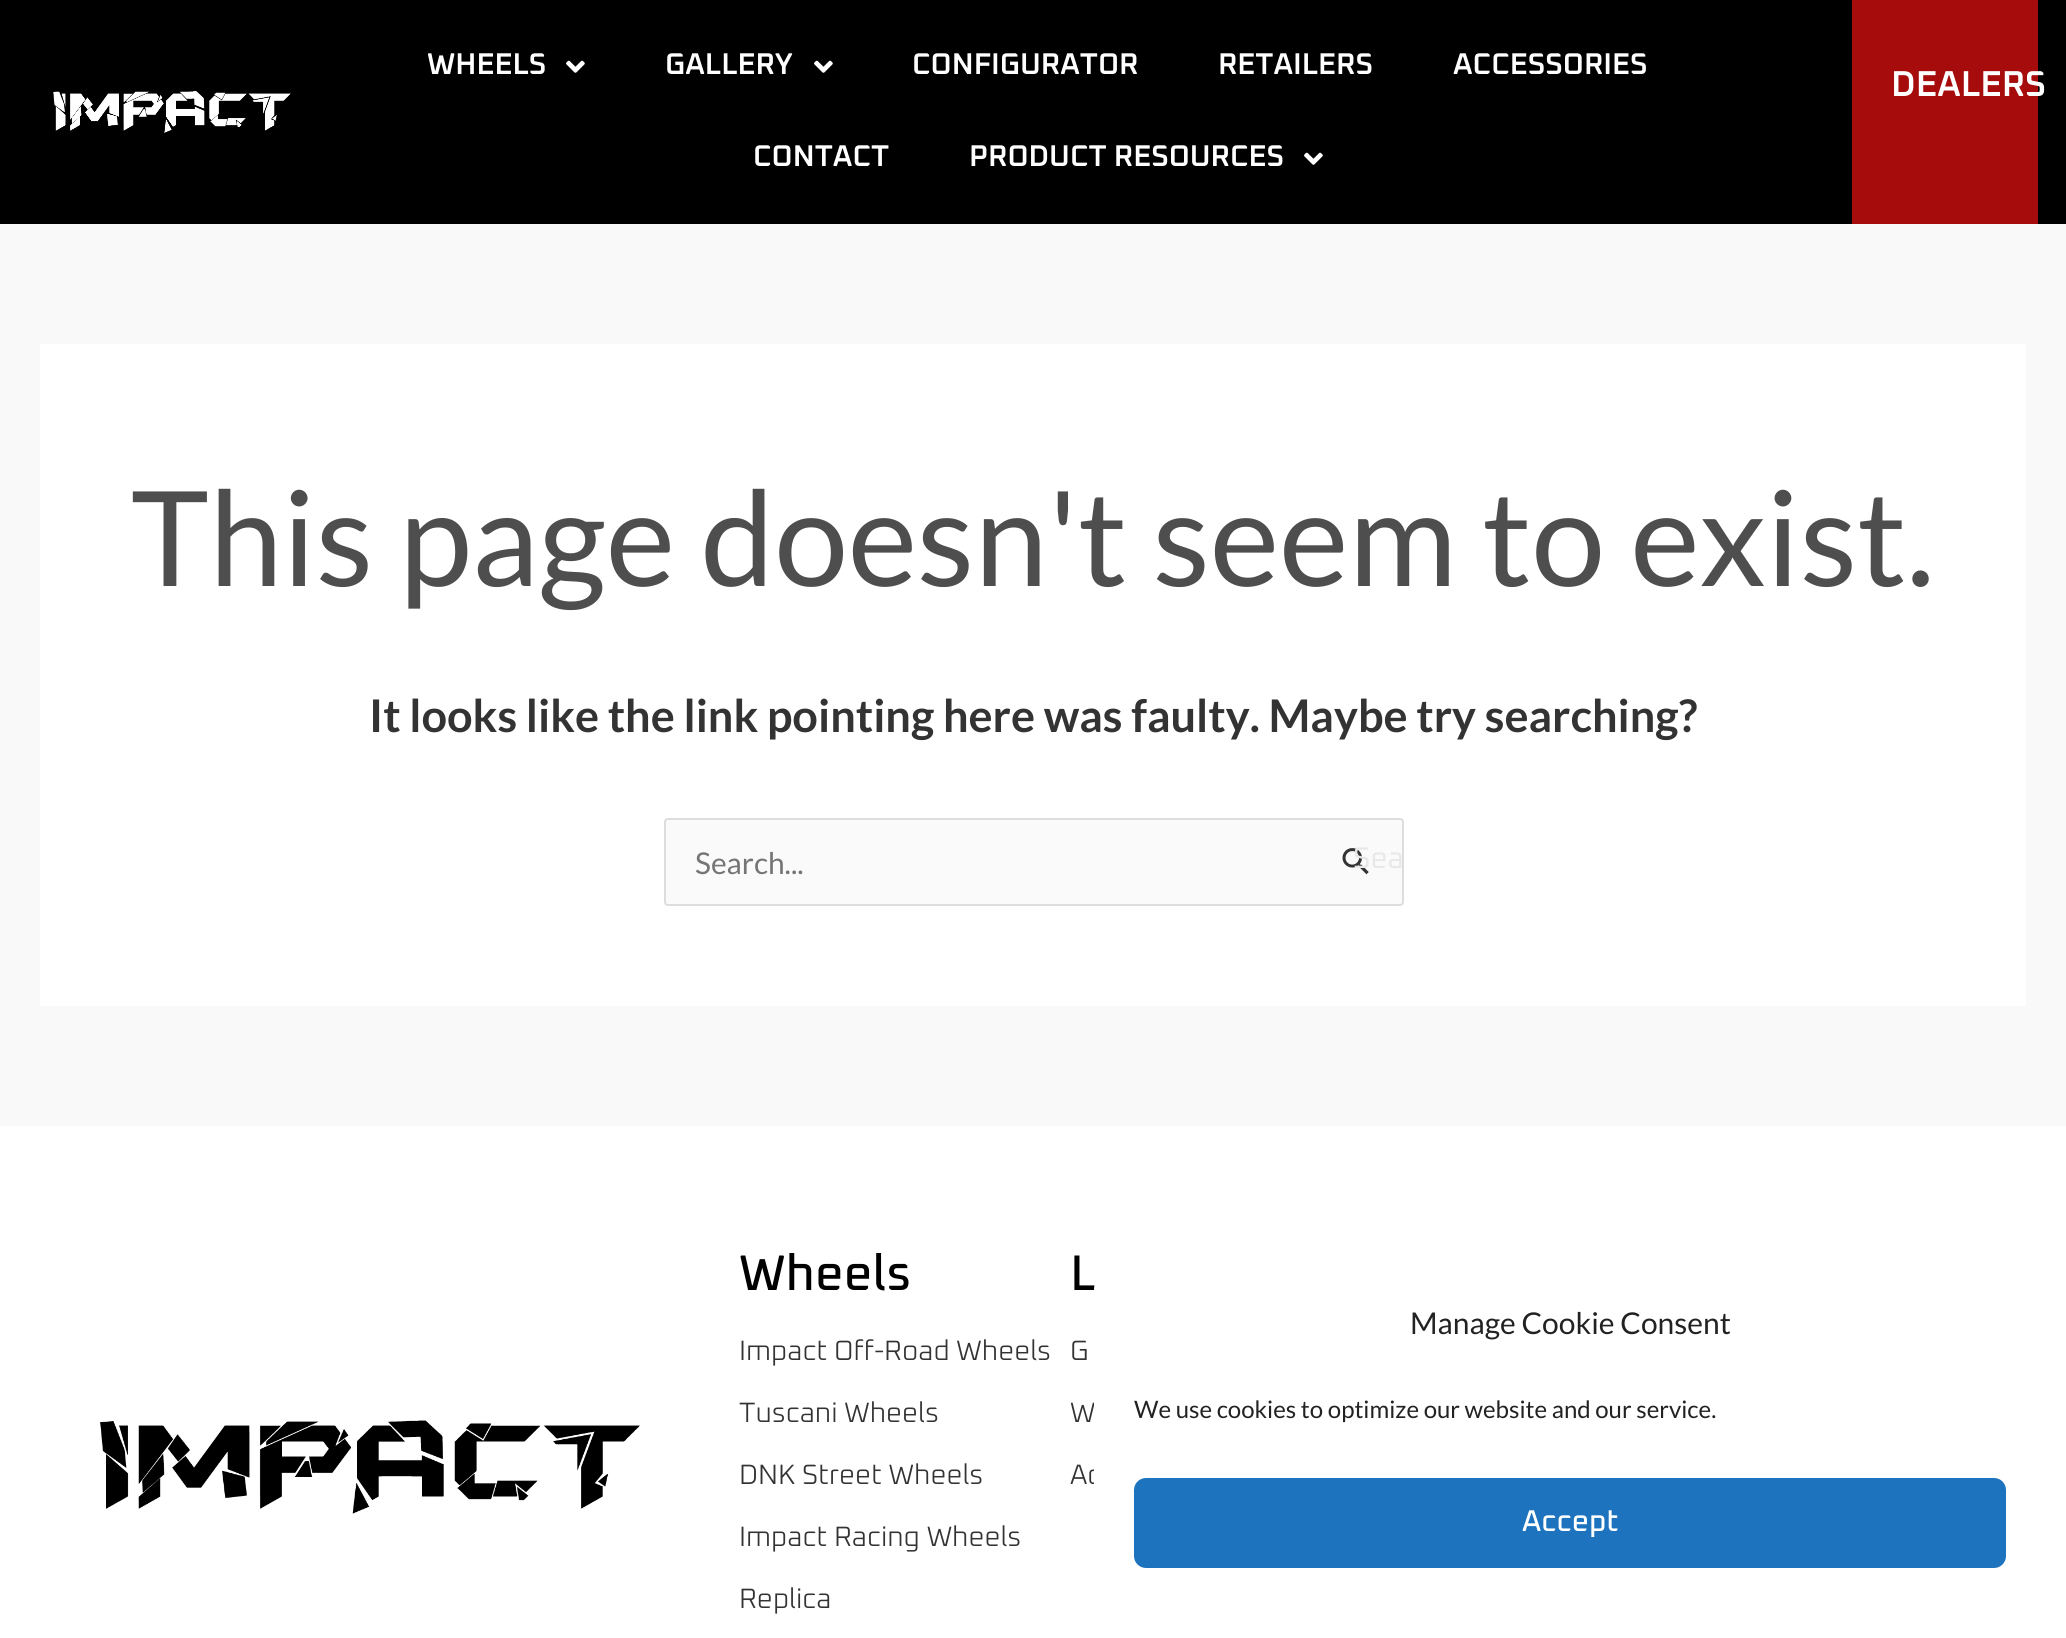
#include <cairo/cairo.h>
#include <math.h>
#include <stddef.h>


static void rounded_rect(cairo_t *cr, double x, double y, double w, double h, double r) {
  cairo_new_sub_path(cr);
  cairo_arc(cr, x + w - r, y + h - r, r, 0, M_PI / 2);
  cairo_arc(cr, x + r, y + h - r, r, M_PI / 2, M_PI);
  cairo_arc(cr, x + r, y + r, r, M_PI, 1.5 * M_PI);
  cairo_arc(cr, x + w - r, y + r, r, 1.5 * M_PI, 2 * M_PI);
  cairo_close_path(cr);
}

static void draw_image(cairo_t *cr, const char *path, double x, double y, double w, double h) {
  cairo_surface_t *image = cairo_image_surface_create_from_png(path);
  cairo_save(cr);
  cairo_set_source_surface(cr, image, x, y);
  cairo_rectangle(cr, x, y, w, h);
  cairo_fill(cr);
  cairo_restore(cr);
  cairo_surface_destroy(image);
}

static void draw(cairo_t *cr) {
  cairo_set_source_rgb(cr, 249 / 255.0, 249 / 255.0, 249 / 255.0);
  cairo_paint(cr);
  cairo_set_source_rgb(cr, 0, 0, 0);
  cairo_rectangle(cr, 0, 0, 2066, 224);
  cairo_fill(cr);
  draw_image(cr, "images/1.png", 566, 60, 19, 13);
  draw_image(cr, "images/1.png", 814, 60, 19, 13);
  draw_image(cr, "images/1.png", 1304, 152, 19, 13);
  cairo_set_source_rgb(cr, 166 / 255.0, 12 / 255.0, 12 / 255.0);
  cairo_rectangle(cr, 1852, 0, 186, 224);
  cairo_fill(cr);
  draw_image(cr, "images/2.png", 53, 91, 238, 42);
  cairo_set_source_rgb(cr, 1, 1, 1);
  cairo_rectangle(cr, 40, 344, 1986, 662);
  cairo_fill(cr);
  cairo_set_source_rgb(cr, 250 / 255.0, 250 / 255.0, 250 / 255.0);
  rounded_rect(cr, 665, 819, 738, 86, 3);
  cairo_fill_preserve(cr);
  cairo_set_source_rgb(cr, 221 / 255.0, 221 / 255.0, 221 / 255.0);
  cairo_stroke(cr);
  draw_image(cr, "images/3.png", 1342, 848, 27, 27);
  cairo_set_source_rgb(cr, 1, 1, 1);
  cairo_rectangle(cr, 0, 1126, 2066, 512);
  cairo_fill(cr);
  draw_image(cr, "images/4.png", 100, 1420, 540, 94);
  cairo_select_font_face(cr, "Oxanium SemiBold", CAIRO_FONT_SLANT_NORMAL, CAIRO_FONT_WEIGHT_NORMAL);
  cairo_set_font_size(cr, 30);
  cairo_move_to(cr, 427, 74);
  cairo_show_text(cr, "WHEELS");
  cairo_move_to(cr, 665, 74);
  cairo_show_text(cr, "GALLERY");
  cairo_move_to(cr, 912, 74);
  cairo_show_text(cr, "CONFIGURATOR");
  cairo_move_to(cr, 1218, 74);
  cairo_show_text(cr, "RETAILERS");
  cairo_move_to(cr, 1453, 74);
  cairo_show_text(cr, "ACCESSORIES");
  cairo_move_to(cr, 753, 166);
  cairo_show_text(cr, "CONTACT");
  cairo_move_to(cr, 969, 166);
  cairo_show_text(cr, "PRODUCT RESOURCES");
  cairo_set_font_size(cr, 36);
  cairo_move_to(cr, 1891, 96);
  cairo_show_text(cr, "DEALERS");
  cairo_select_font_face(cr, "Lato", CAIRO_FONT_SLANT_NORMAL, CAIRO_FONT_WEIGHT_NORMAL);
  cairo_set_font_size(cr, 132);
  cairo_set_source_rgb(cr, 78 / 255.0, 78 / 255.0, 78 / 255.0);
  cairo_move_to(cr, 131, 586);
  cairo_show_text(cr, "This page doesn't seem to exist.");
  cairo_select_font_face(cr, "Lato", CAIRO_FONT_SLANT_NORMAL, CAIRO_FONT_WEIGHT_BOLD);
  cairo_set_font_size(cr, 45);
  cairo_set_source_rgb(cr, 51 / 255.0, 51 / 255.0, 51 / 255.0);
  cairo_move_to(cr, 369, 732);
  cairo_show_text(cr, "It looks like the link pointing here was faulty. Maybe try searching?");
  cairo_select_font_face(cr, "Oxanium", CAIRO_FONT_SLANT_NORMAL, CAIRO_FONT_WEIGHT_NORMAL);
  cairo_set_font_size(cr, 30);
  cairo_set_source_rgb(cr, 232 / 255.0, 232 / 255.0, 232 / 255.0);
  cairo_move_to(cr, 1353, 868);
  cairo_show_text(cr, "Sea");
  cairo_select_font_face(cr, "Lato", CAIRO_FONT_SLANT_NORMAL, CAIRO_FONT_WEIGHT_NORMAL);
  cairo_set_source_rgb(cr, 117 / 255.0, 117 / 255.0, 117 / 255.0);
  cairo_move_to(cr, 695, 874);
  cairo_show_text(cr, "Search...");
  cairo_select_font_face(cr, "Oxanium Medium", CAIRO_FONT_SLANT_NORMAL, CAIRO_FONT_WEIGHT_NORMAL);
  cairo_set_font_size(cr, 50);
  cairo_set_source_rgb(cr, 0, 0, 0);
  cairo_move_to(cr, 739, 1290);
  cairo_show_text(cr, "Wheels");
  cairo_select_font_face(cr, "Oxanium Light", CAIRO_FONT_SLANT_NORMAL, CAIRO_FONT_WEIGHT_NORMAL);
  cairo_set_font_size(cr, 28);
  cairo_set_source_rgb(cr, 51 / 255.0, 51 / 255.0, 51 / 255.0);
  cairo_move_to(cr, 739, 1360);
  cairo_show_text(cr, "Impact Off-Road Wheels");
  cairo_move_to(cr, 739, 1422);
  cairo_show_text(cr, "Tuscani Wheels");
  cairo_move_to(cr, 739, 1484);
  cairo_show_text(cr, "DNK Street Wheels");
  cairo_move_to(cr, 739, 1546);
  cairo_show_text(cr, "Impact Racing Wheels");
  cairo_move_to(cr, 739, 1608);
  cairo_show_text(cr, "Replica");
  cairo_select_font_face(cr, "Oxanium Medium", CAIRO_FONT_SLANT_NORMAL, CAIRO_FONT_WEIGHT_NORMAL);
  cairo_set_font_size(cr, 50);
  cairo_set_source_rgb(cr, 0, 0, 0);
  cairo_move_to(cr, 1070, 1290);
  cairo_show_text(cr, "L");
  cairo_select_font_face(cr, "Oxanium Light", CAIRO_FONT_SLANT_NORMAL, CAIRO_FONT_WEIGHT_NORMAL);
  cairo_set_font_size(cr, 28);
  cairo_set_source_rgb(cr, 51 / 255.0, 51 / 255.0, 51 / 255.0);
  cairo_move_to(cr, 1070, 1360);
  cairo_show_text(cr, "G");
  cairo_move_to(cr, 1070, 1422);
  cairo_show_text(cr, "W");
  cairo_move_to(cr, 1070, 1484);
  cairo_show_text(cr, "Ac");
  cairo_set_source_rgb(cr, 1, 1, 1);
  rounded_rect(cr, 1094, 1266, 952, 352, 24);
  cairo_fill(cr);
  cairo_select_font_face(cr, "Lato", CAIRO_FONT_SLANT_NORMAL, CAIRO_FONT_WEIGHT_NORMAL);
  cairo_set_font_size(cr, 30);
  cairo_set_source_rgb(cr, 34 / 255.0, 34 / 255.0, 34 / 255.0);
  cairo_move_to(cr, 1410, 1334);
  cairo_show_text(cr, "Manage Cookie Consent");
  cairo_set_font_size(cr, 24);
  cairo_move_to(cr, 1134, 1418);
  cairo_show_text(cr, "We use cookies to optimize our website and our service.");
  cairo_set_source_rgb(cr, 30 / 255.0, 115 / 255.0, 190 / 255.0);
  rounded_rect(cr, 1135, 1479, 870, 88, 11);
  cairo_fill_preserve(cr);
  cairo_stroke(cr);
  cairo_select_font_face(cr, "Oxanium Medium", CAIRO_FONT_SLANT_NORMAL, CAIRO_FONT_WEIGHT_NORMAL);
  cairo_set_font_size(cr, 30);
  cairo_set_source_rgb(cr, 1, 1, 1);
  cairo_move_to(cr, 1522, 1531);
  cairo_show_text(cr, "Accept");
}

int main(void) {
  cairo_surface_t *surface = cairo_image_surface_create(CAIRO_FORMAT_RGB24, 2066, 1638);
  cairo_t *cr = cairo_create(surface);
  cairo_font_options_t *options = cairo_font_options_create();
  cairo_font_options_set_hint_metrics(options, CAIRO_HINT_METRICS_OFF);
  cairo_font_options_set_hint_style(options, CAIRO_HINT_STYLE_NONE);
  cairo_set_font_options(cr, options);
  cairo_set_miter_limit(cr, 4);
  draw(cr);
  cairo_surface_write_to_png(surface, "out.png");
  cairo_font_options_destroy(options);
  cairo_destroy(cr);
  cairo_surface_destroy(surface);
  return 0;
}
